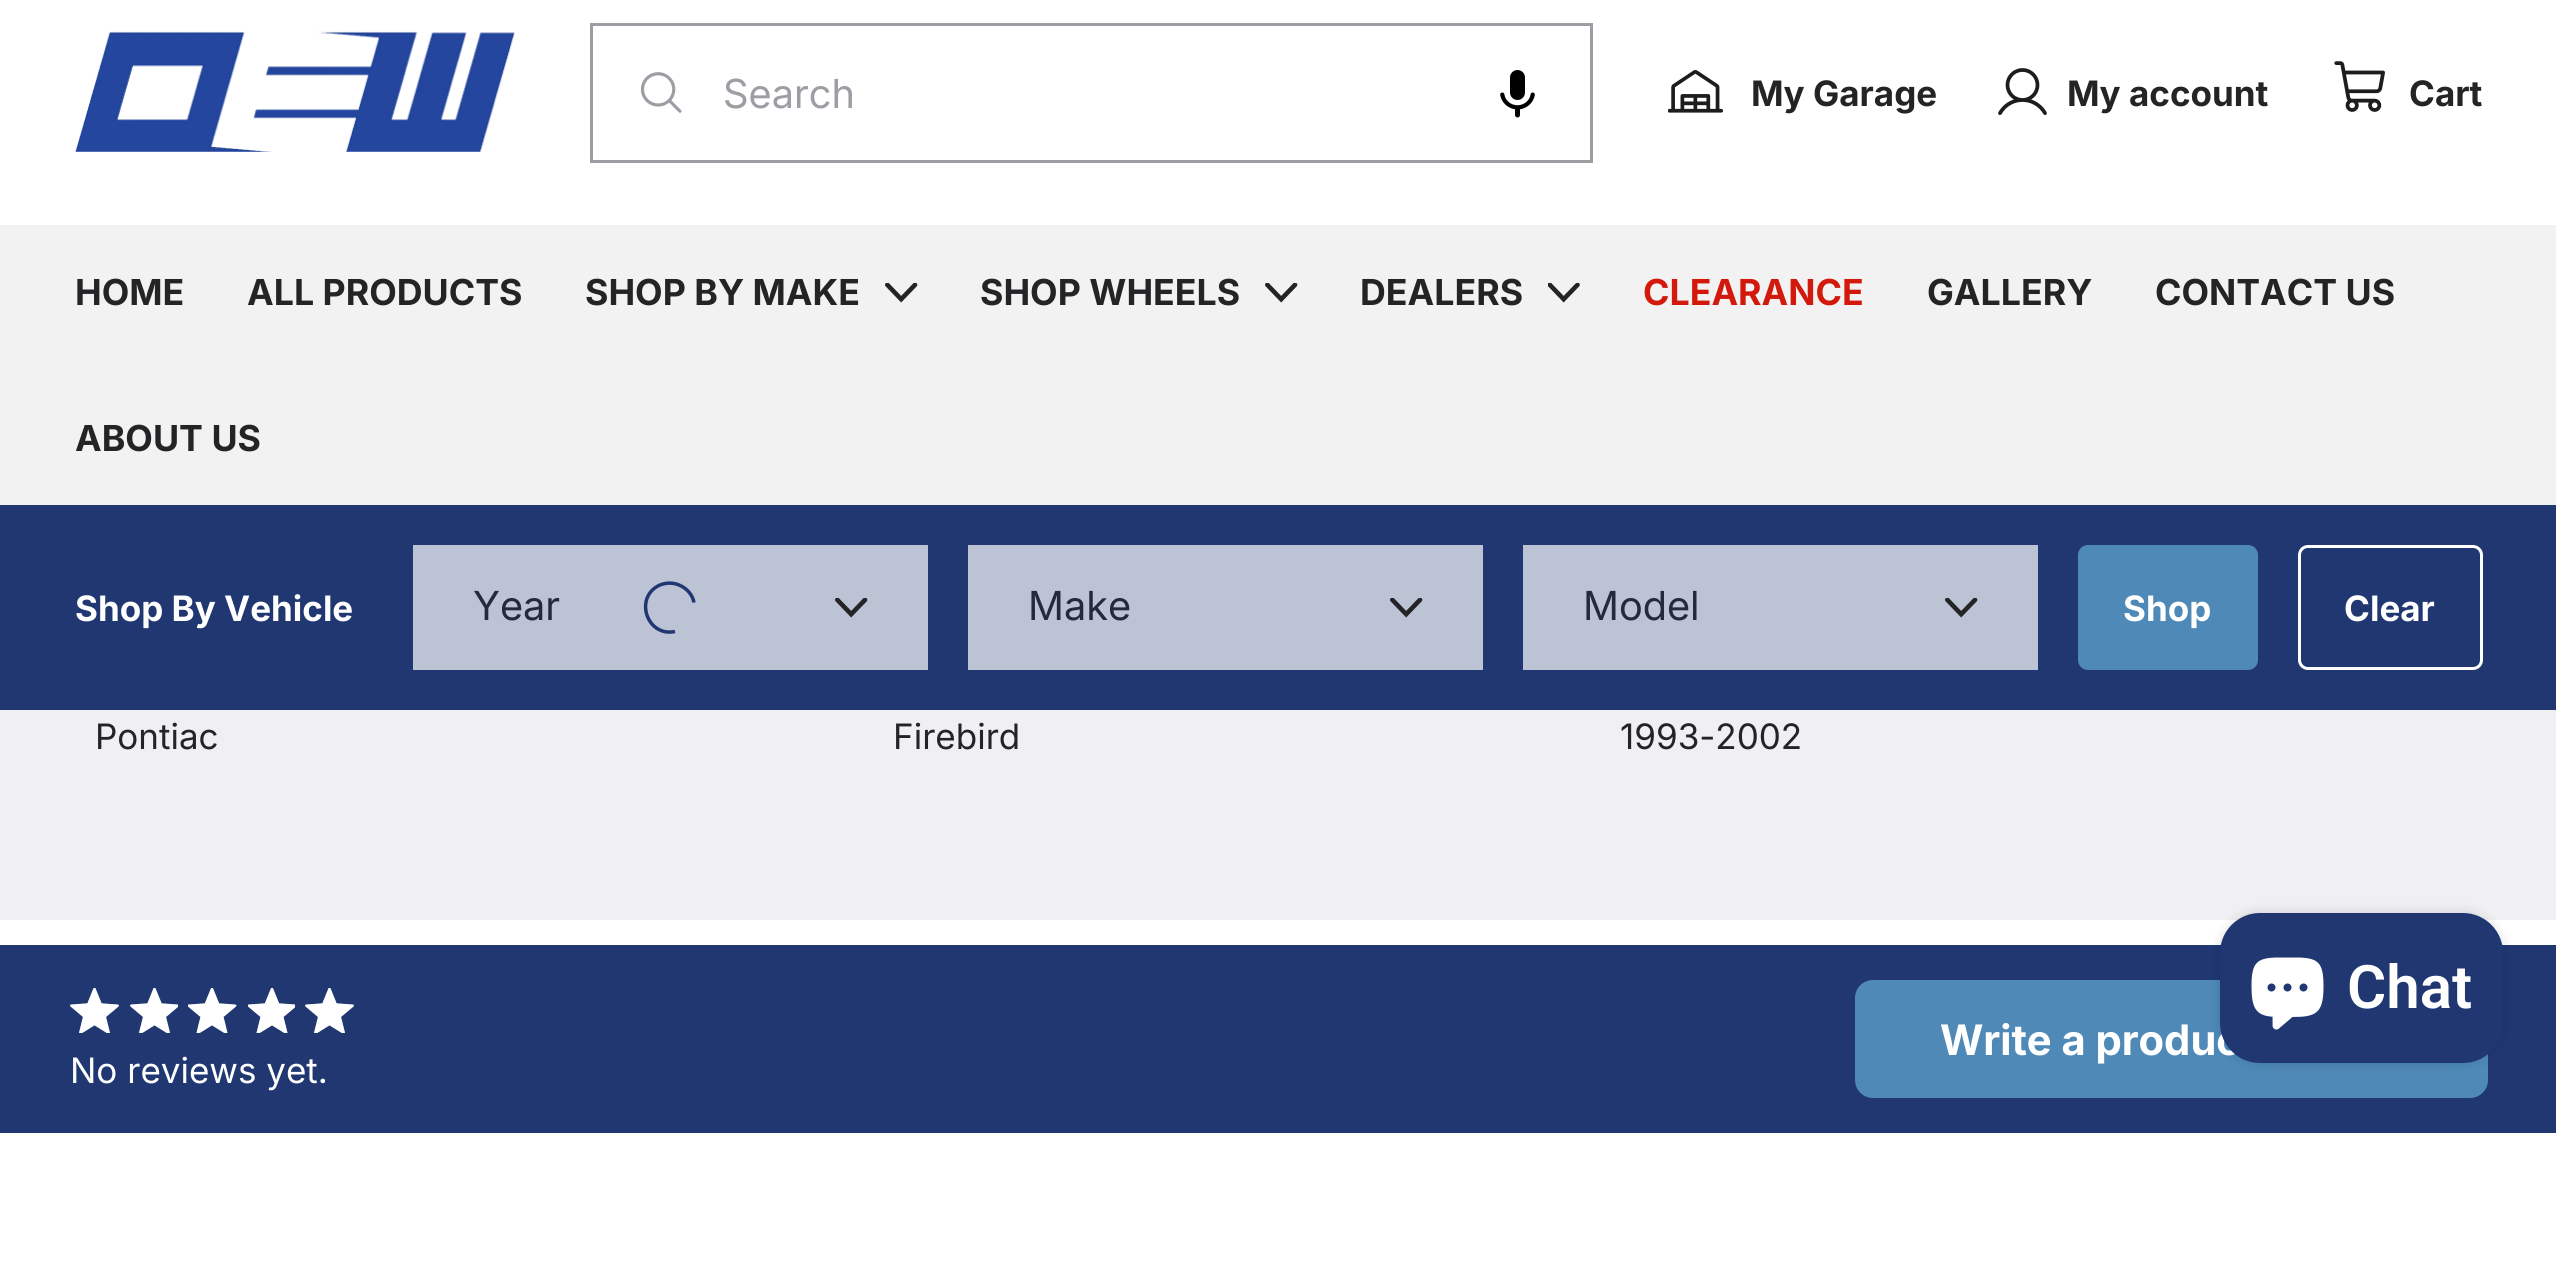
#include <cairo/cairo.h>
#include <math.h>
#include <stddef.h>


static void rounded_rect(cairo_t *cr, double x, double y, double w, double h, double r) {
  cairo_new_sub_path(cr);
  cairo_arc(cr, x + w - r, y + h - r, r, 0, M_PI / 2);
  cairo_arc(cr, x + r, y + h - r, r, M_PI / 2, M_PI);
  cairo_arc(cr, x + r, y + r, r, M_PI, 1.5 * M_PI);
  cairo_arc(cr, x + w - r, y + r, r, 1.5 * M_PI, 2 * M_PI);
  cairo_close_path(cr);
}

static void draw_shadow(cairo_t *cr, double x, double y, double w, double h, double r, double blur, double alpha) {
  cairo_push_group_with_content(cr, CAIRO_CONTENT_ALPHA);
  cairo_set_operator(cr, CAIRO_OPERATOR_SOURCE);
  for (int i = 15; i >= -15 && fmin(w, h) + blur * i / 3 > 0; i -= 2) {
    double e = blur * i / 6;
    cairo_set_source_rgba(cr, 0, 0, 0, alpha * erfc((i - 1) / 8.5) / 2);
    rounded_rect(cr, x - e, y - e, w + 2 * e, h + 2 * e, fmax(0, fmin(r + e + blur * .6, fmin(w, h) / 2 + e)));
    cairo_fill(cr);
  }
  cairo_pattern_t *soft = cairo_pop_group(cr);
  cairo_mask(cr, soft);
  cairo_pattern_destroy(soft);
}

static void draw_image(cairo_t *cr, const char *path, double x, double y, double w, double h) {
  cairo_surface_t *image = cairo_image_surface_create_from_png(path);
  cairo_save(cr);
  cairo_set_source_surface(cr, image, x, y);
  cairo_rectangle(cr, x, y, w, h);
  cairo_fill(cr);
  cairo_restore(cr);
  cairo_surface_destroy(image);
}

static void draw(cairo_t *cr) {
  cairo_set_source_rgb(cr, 1, 1, 1);
  cairo_paint(cr);
  draw_image(cr, "images/1.png", 75, 31, 440, 121);
  cairo_rectangle(cr, 591.5, 24.5, 1000, 137);
  cairo_set_source_rgb(cr, 157 / 255.0, 157 / 255.0, 164 / 255.0);
  cairo_set_line_width(cr, 3);
  cairo_stroke(cr);
  draw_image(cr, "images/2.png", 640, 72, 42, 41);
  draw_image(cr, "images/3.png", 1500, 70, 35, 48);
  draw_image(cr, "images/4.png", 1668, 70, 56, 43);
  draw_image(cr, "images/5.png", 1998, 68, 49, 47);
  draw_image(cr, "images/6.png", 2334, 61, 51, 51);
  cairo_set_source_rgb(cr, 242 / 255.0, 242 / 255.0, 242 / 255.0);
  cairo_rectangle(cr, 0, 225, 2556, 280);
  cairo_fill(cr);
  draw_image(cr, "images/7.png", 885, 283, 33, 20);
  draw_image(cr, "images/7.png", 1265, 283, 33, 20);
  draw_image(cr, "images/8.png", 1548, 283, 32, 20);
  cairo_set_source_rgb(cr, 32 / 255.0, 55 / 255.0, 114 / 255.0);
  cairo_rectangle(cr, 0, 505, 2556, 205);
  cairo_fill(cr);
  cairo_set_source_rgb(cr, 188 / 255.0, 195 / 255.0, 213 / 255.0);
  cairo_rectangle(cr, 413, 545, 515, 125);
  cairo_fill(cr);
  cairo_new_path(cr);
  cairo_move_to(cr, 675, 631.5);
  cairo_curve_to(cr, 646.5, 637.5, 633.5, 596.5, 660, 585);
  cairo_curve_to(cr, 666, 582.5, 673, 582.5, 679, 585);
  cairo_curve_to(cr, 686.5, 588, 692.5, 594.5, 694, 602.5);
  cairo_set_source_rgb(cr, 32 / 255.0, 55 / 255.0, 114 / 255.0);
  cairo_set_line_width(cr, 3.5);
  cairo_stroke(cr);
  draw_image(cr, "images/9.png", 835, 598, 33, 20);
  cairo_set_source_rgb(cr, 188 / 255.0, 195 / 255.0, 213 / 255.0);
  cairo_rectangle(cr, 968, 545, 515, 125);
  cairo_fill(cr);
  draw_image(cr, "images/9.png", 1390, 598, 33, 20);
  cairo_rectangle(cr, 1523, 545, 515, 125);
  cairo_fill(cr);
  draw_image(cr, "images/9.png", 1945, 598, 33, 20);
  cairo_set_source_rgb(cr, 78 / 255.0, 137 / 255.0, 183 / 255.0);
  rounded_rect(cr, 2078, 545, 180, 125, 10);
  cairo_fill(cr);
  rounded_rect(cr, 2299.5, 546.5, 182, 122, 8.5);
  cairo_set_source_rgb(cr, 1, 1, 1);
  cairo_set_line_width(cr, 3);
  cairo_stroke(cr);
  cairo_set_source_rgb(cr, 240 / 255.0, 240 / 255.0, 242 / 255.0);
  cairo_rectangle(cr, 0, 710, 2556, 210);
  cairo_fill(cr);
  cairo_set_source_rgb(cr, 32 / 255.0, 55 / 255.0, 114 / 255.0);
  cairo_rectangle(cr, 0, 945, 2556, 188);
  cairo_fill(cr);
  cairo_set_source_rgb(cr, 78 / 255.0, 137 / 255.0, 183 / 255.0);
  rounded_rect(cr, 1855, 980, 633, 118, 18);
  cairo_fill(cr);
  draw_image(cr, "images/10.png", 70, 988, 49, 45);
  draw_image(cr, "images/11.png", 130, 988, 48, 45);
  draw_image(cr, "images/12.png", 188, 988, 49, 45);
  draw_image(cr, "images/13.png", 248, 988, 47, 45);
  draw_image(cr, "images/10.png", 305, 988, 49, 45);
  cairo_set_source_rgb(cr, 0, 0, 0);
  draw_shadow(cr, 2220, 913, 283, 150, 40, 6, 0.15);
  cairo_select_font_face(cr, "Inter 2", CAIRO_FONT_SLANT_NORMAL, CAIRO_FONT_WEIGHT_NORMAL);
  cairo_set_font_size(cr, 40);
  cairo_set_source_rgb(cr, 157 / 255.0, 157 / 255.0, 164 / 255.0);
  cairo_move_to(cr, 723, 108);
  cairo_show_text(cr, "Search");
  cairo_select_font_face(cr, "Inter 2", CAIRO_FONT_SLANT_NORMAL, CAIRO_FONT_WEIGHT_BOLD);
  cairo_set_font_size(cr, 35);
  cairo_set_source_rgb(cr, 36 / 255.0, 36 / 255.0, 39 / 255.0);
  cairo_move_to(cr, 1751, 106);
  cairo_show_text(cr, "My Garage");
  cairo_move_to(cr, 2067, 106);
  cairo_show_text(cr, "My account");
  cairo_move_to(cr, 2409, 106);
  cairo_show_text(cr, "Cart");
  cairo_set_font_size(cr, 35.75);
  cairo_move_to(cr, 75, 305);
  cairo_show_text(cr, "HOME");
  cairo_move_to(cr, 247, 305);
  cairo_show_text(cr, "ALL PRODUCTS");
  cairo_move_to(cr, 585, 305);
  cairo_show_text(cr, "SHOP BY MAKE");
  cairo_move_to(cr, 980, 305);
  cairo_show_text(cr, "SHOP WHEELS");
  cairo_move_to(cr, 1360, 305);
  cairo_show_text(cr, "DEALERS");
  cairo_set_source_rgb(cr, 210 / 255.0, 25 / 255.0, 11 / 255.0);
  cairo_move_to(cr, 1643, 305);
  cairo_show_text(cr, "CLEARANCE");
  cairo_set_source_rgb(cr, 36 / 255.0, 36 / 255.0, 39 / 255.0);
  cairo_move_to(cr, 1927, 305);
  cairo_show_text(cr, "GALLERY");
  cairo_move_to(cr, 2155, 305);
  cairo_show_text(cr, "CONTACT US");
  cairo_move_to(cr, 75, 451);
  cairo_show_text(cr, "ABOUT US");
  cairo_set_font_size(cr, 35);
  cairo_set_source_rgb(cr, 1, 1, 1);
  cairo_move_to(cr, 75, 621);
  cairo_show_text(cr, "Shop By Vehicle");
  cairo_select_font_face(cr, "Inter 2", CAIRO_FONT_SLANT_NORMAL, CAIRO_FONT_WEIGHT_NORMAL);
  cairo_set_font_size(cr, 40);
  cairo_set_source_rgb(cr, 35 / 255.0, 42 / 255.0, 62 / 255.0);
  cairo_move_to(cr, 473, 620);
  cairo_show_text(cr, "Year");
  cairo_move_to(cr, 1028, 620);
  cairo_show_text(cr, "Make");
  cairo_move_to(cr, 1583, 620);
  cairo_show_text(cr, "Model");
  cairo_select_font_face(cr, "Inter 2", CAIRO_FONT_SLANT_NORMAL, CAIRO_FONT_WEIGHT_BOLD);
  cairo_set_font_size(cr, 35);
  cairo_set_source_rgb(cr, 1, 1, 1);
  cairo_move_to(cr, 2123, 621);
  cairo_show_text(cr, "Shop");
  cairo_move_to(cr, 2344, 621);
  cairo_show_text(cr, "Clear");
  cairo_select_font_face(cr, "Inter", CAIRO_FONT_SLANT_NORMAL, CAIRO_FONT_WEIGHT_NORMAL);
  cairo_set_source_rgb(cr, 36 / 255.0, 36 / 255.0, 39 / 255.0);
  cairo_move_to(cr, 95, 749);
  cairo_show_text(cr, "Pontiac");
  cairo_move_to(cr, 893, 749);
  cairo_show_text(cr, "Firebird");
  cairo_move_to(cr, 1620, 749);
  cairo_show_text(cr, "1993-2002");
  cairo_select_font_face(cr, "Inter", CAIRO_FONT_SLANT_NORMAL, CAIRO_FONT_WEIGHT_BOLD);
  cairo_set_font_size(cr, 42);
  cairo_set_source_rgb(cr, 1, 1, 1);
  cairo_move_to(cr, 1940, 1055);
  cairo_show_text(cr, "Write a produc");
  cairo_select_font_face(cr, "Inter", CAIRO_FONT_SLANT_NORMAL, CAIRO_FONT_WEIGHT_NORMAL);
  cairo_set_font_size(cr, 35);
  cairo_move_to(cr, 70, 1083);
  cairo_show_text(cr, "No reviews yet.");
  cairo_set_source_rgb(cr, 32 / 255.0, 55 / 255.0, 114 / 255.0);
  rounded_rect(cr, 2220, 913, 283, 150, 40);
  cairo_fill(cr);
  draw_image(cr, "images/14.png", 2251, 957, 73, 73);
  cairo_select_font_face(cr, "Roboto SemiBold", CAIRO_FONT_SLANT_NORMAL, CAIRO_FONT_WEIGHT_NORMAL);
  cairo_set_font_size(cr, 60);
  cairo_set_source_rgb(cr, 1, 1, 1);
  cairo_move_to(cr, 2347, 1008);
  cairo_show_text(cr, "Chat");
}

int main(void) {
  cairo_surface_t *surface = cairo_image_surface_create(CAIRO_FORMAT_RGB24, 2556, 1275);
  cairo_t *cr = cairo_create(surface);
  cairo_font_options_t *options = cairo_font_options_create();
  cairo_font_options_set_hint_metrics(options, CAIRO_HINT_METRICS_OFF);
  cairo_font_options_set_hint_style(options, CAIRO_HINT_STYLE_NONE);
  cairo_set_font_options(cr, options);
  cairo_set_miter_limit(cr, 4);
  draw(cr);
  cairo_surface_write_to_png(surface, "out.png");
  cairo_font_options_destroy(options);
  cairo_destroy(cr);
  cairo_surface_destroy(surface);
  return 0;
}
